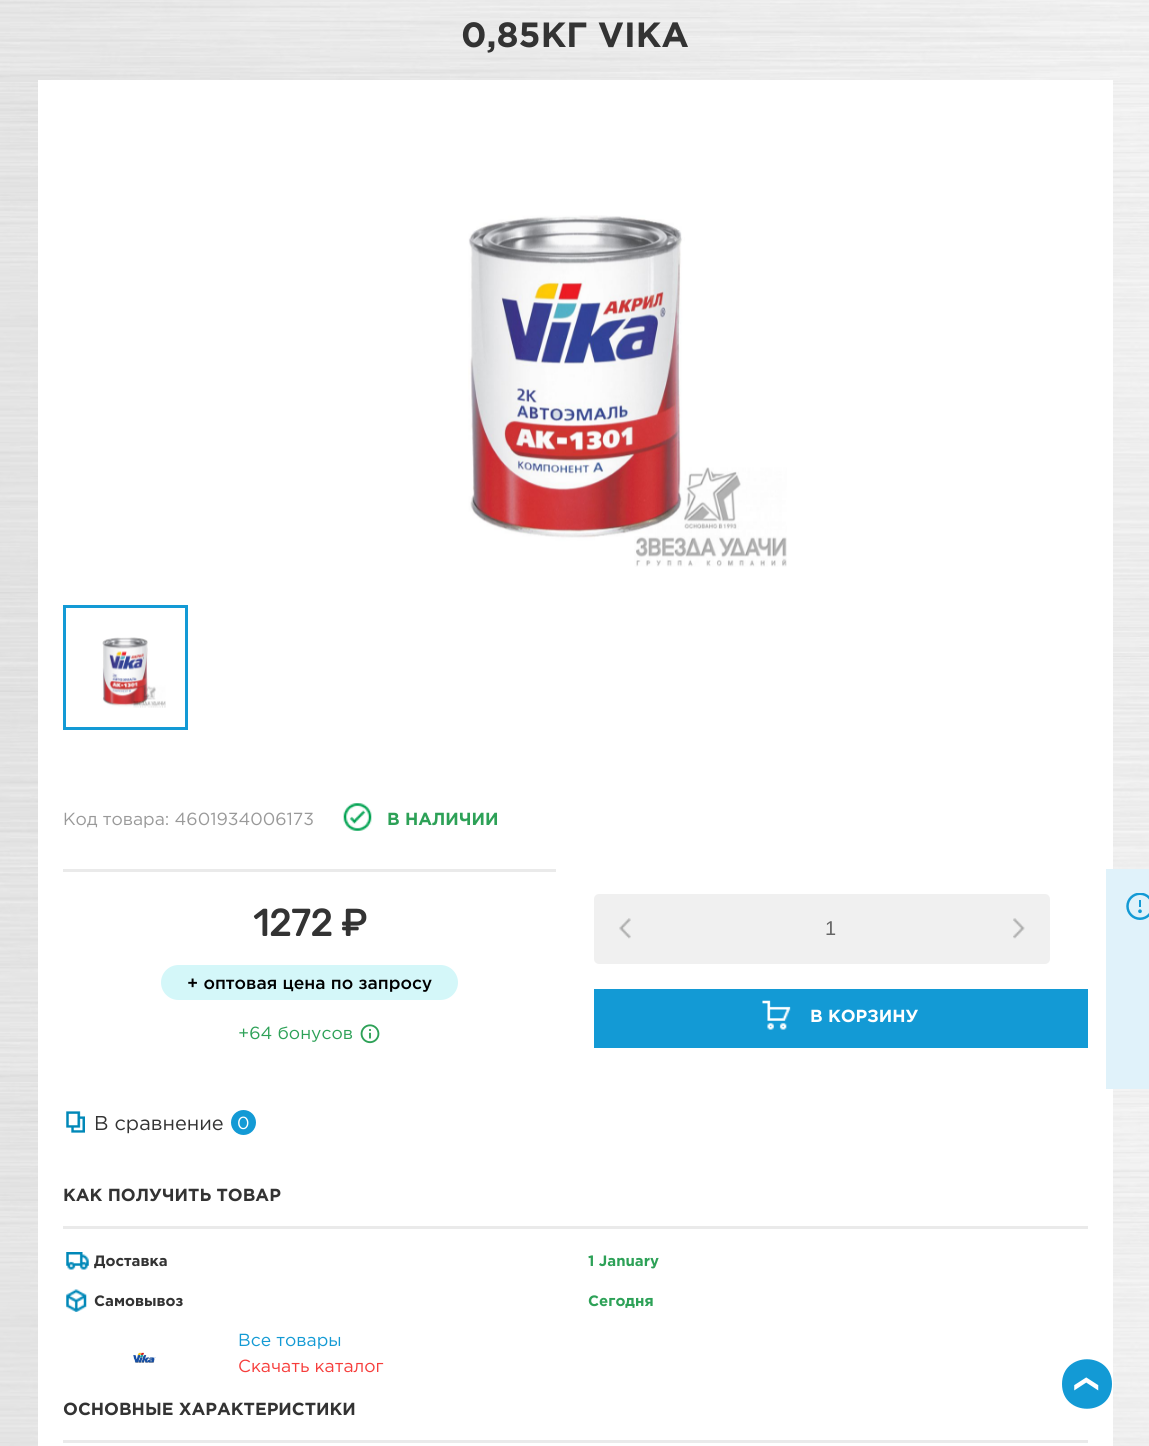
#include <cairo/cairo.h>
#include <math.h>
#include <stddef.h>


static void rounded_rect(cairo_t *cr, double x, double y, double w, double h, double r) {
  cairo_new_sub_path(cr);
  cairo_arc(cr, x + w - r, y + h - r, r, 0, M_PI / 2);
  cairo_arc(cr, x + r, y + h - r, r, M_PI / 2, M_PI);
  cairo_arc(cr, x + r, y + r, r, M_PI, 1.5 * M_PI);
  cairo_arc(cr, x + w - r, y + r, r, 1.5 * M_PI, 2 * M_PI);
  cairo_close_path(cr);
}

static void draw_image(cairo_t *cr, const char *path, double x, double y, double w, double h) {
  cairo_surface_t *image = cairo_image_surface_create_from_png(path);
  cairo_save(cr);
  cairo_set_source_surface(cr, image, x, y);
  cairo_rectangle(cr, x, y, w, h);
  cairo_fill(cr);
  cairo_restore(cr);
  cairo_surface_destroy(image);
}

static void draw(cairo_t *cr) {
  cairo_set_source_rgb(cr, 1, 1, 1);
  cairo_paint(cr);
  draw_image(cr, "images/1.png", 0, 0, 1149, 1446);
  cairo_set_source_rgb(cr, 1, 1, 1);
  cairo_rectangle(cr, 38, 80, 1075, 1366);
  cairo_fill(cr);
  draw_image(cr, "images/2.png", 468, 215, 319, 352);
  cairo_rectangle(cr, 64.5, 606.5, 122, 122);
  cairo_set_source_rgb(cr, 19 / 255.0, 154 / 255.0, 213 / 255.0);
  cairo_set_line_width(cr, 3);
  cairo_stroke(cr);
  draw_image(cr, "images/3.png", 102, 637, 64, 71);
  draw_image(cr, "images/4.png", 343, 803, 29, 28);
  cairo_set_source_rgb(cr, 234 / 255.0, 234 / 255.0, 234 / 255.0);
  cairo_rectangle(cr, 63, 869, 493, 3);
  cairo_fill(cr);
  cairo_set_source_rgb(cr, 212 / 255.0, 247 / 255.0, 249 / 255.0);
  rounded_rect(cr, 161, 965, 297, 35, 17.5);
  cairo_fill(cr);
  draw_image(cr, "images/5.png", 360, 1024, 20, 20);
  cairo_set_source_rgb(cr, 240 / 255.0, 240 / 255.0, 240 / 255.0);
  rounded_rect(cr, 594, 894, 456, 70, 5);
  cairo_fill(cr);
  draw_image(cr, "images/6.png", 619, 918, 12, 21);
  draw_image(cr, "images/7.png", 1013, 918, 12, 21);
  cairo_set_source_rgb(cr, 19 / 255.0, 154 / 255.0, 213 / 255.0);
  cairo_rectangle(cr, 594, 989, 494, 59);
  cairo_fill(cr);
  draw_image(cr, "images/8.png", 762, 1000, 29, 30);
  cairo_set_source_rgb(cr, 224 / 255.0, 242 / 255.0, 250 / 255.0);
  cairo_rectangle(cr, 1106, 869, 43, 220);
  cairo_fill(cr);
  draw_image(cr, "images/9.png", 1126, 893, 23, 27);
  draw_image(cr, "images/10.png", 66, 1111, 19, 22);
  cairo_set_source_rgb(cr, 19 / 255.0, 154 / 255.0, 213 / 255.0);
  cairo_arc(cr, 243.5, 1122.5, 12.5, 0, 2 * M_PI);
  cairo_fill(cr);
  cairo_set_source_rgb(cr, 234 / 255.0, 234 / 255.0, 234 / 255.0);
  cairo_rectangle(cr, 63, 1226, 1025, 3);
  cairo_fill(cr);
  draw_image(cr, "images/11.png", 66, 1252, 23, 18);
  draw_image(cr, "images/12.png", 66, 1289, 21, 23);
  draw_image(cr, "images/13.png", 133, 1352, 23, 11);
  cairo_rectangle(cr, 63, 1440, 1025, 3);
  cairo_fill(cr);
  cairo_set_source_rgb(cr, 19 / 255.0, 154 / 255.0, 213 / 255.0);
  cairo_new_path(cr);
  cairo_move_to(cr, 1112, 1384);
  cairo_curve_to(cr, 1112, 1417, 1062, 1417, 1062, 1384);
  cairo_curve_to(cr, 1062, 1351, 1112, 1351, 1112, 1384);
  cairo_close_path(cr);
  cairo_fill(cr);
  cairo_select_font_face(cr, "Gotham", CAIRO_FONT_SLANT_NORMAL, CAIRO_FONT_WEIGHT_BOLD);
  cairo_set_font_size(cr, 35);
  cairo_set_source_rgb(cr, 51 / 255.0, 51 / 255.0, 51 / 255.0);
  cairo_move_to(cr, 461, 47);
  cairo_show_text(cr, "0,85КГ VIKA");
  cairo_select_font_face(cr, "Gotham", CAIRO_FONT_SLANT_NORMAL, CAIRO_FONT_WEIGHT_NORMAL);
  cairo_set_font_size(cr, 17.5);
  cairo_set_source_rgb(cr, 153 / 255.0, 153 / 255.0, 153 / 255.0);
  cairo_move_to(cr, 63, 825);
  cairo_show_text(cr, "Код товара: 4601934006173");
  cairo_select_font_face(cr, "Gotham", CAIRO_FONT_SLANT_NORMAL, CAIRO_FONT_WEIGHT_BOLD);
  cairo_set_source_rgb(cr, 45 / 255.0, 161 / 255.0, 87 / 255.0);
  cairo_move_to(cr, 387, 825);
  cairo_show_text(cr, "В НАЛИЧИИ");
  cairo_select_font_face(cr, "Rubik", CAIRO_FONT_SLANT_NORMAL, CAIRO_FONT_WEIGHT_BOLD);
  cairo_set_font_size(cr, 37.5);
  cairo_set_source_rgb(cr, 51 / 255.0, 51 / 255.0, 51 / 255.0);
  cairo_move_to(cr, 253, 936);
  cairo_show_text(cr, "1272 ₽");
  cairo_select_font_face(cr, "Gotham Medium", CAIRO_FONT_SLANT_NORMAL, CAIRO_FONT_WEIGHT_NORMAL);
  cairo_set_font_size(cr, 17.5);
  cairo_set_source_rgb(cr, 0, 0, 0);
  cairo_move_to(cr, 187, 989);
  cairo_show_text(cr, "+ оптовая цена по запросу");
  cairo_select_font_face(cr, "Gotham", CAIRO_FONT_SLANT_NORMAL, CAIRO_FONT_WEIGHT_NORMAL);
  cairo_set_source_rgb(cr, 45 / 255.0, 161 / 255.0, 87 / 255.0);
  cairo_move_to(cr, 238, 1039);
  cairo_show_text(cr, "+64 бонусов");
  cairo_select_font_face(cr, "Liberation Sans", CAIRO_FONT_SLANT_NORMAL, CAIRO_FONT_WEIGHT_NORMAL);
  cairo_set_font_size(cr, 20);
  cairo_set_source_rgb(cr, 102 / 255.0, 102 / 255.0, 102 / 255.0);
  cairo_move_to(cr, 825, 935);
  cairo_show_text(cr, "1");
  cairo_select_font_face(cr, "Gotham", CAIRO_FONT_SLANT_NORMAL, CAIRO_FONT_WEIGHT_BOLD);
  cairo_set_font_size(cr, 17.5);
  cairo_set_source_rgb(cr, 1, 1, 1);
  cairo_move_to(cr, 810, 1022);
  cairo_show_text(cr, "В КОРЗИНУ");
  cairo_select_font_face(cr, "Gotham", CAIRO_FONT_SLANT_NORMAL, CAIRO_FONT_WEIGHT_NORMAL);
  cairo_set_font_size(cr, 20);
  cairo_set_source_rgb(cr, 51 / 255.0, 51 / 255.0, 51 / 255.0);
  cairo_move_to(cr, 94, 1130);
  cairo_show_text(cr, "В сравнение");
  cairo_set_font_size(cr, 17.5);
  cairo_set_source_rgb(cr, 1, 1, 1);
  cairo_move_to(cr, 237, 1129);
  cairo_show_text(cr, "0");
  cairo_select_font_face(cr, "Gotham", CAIRO_FONT_SLANT_NORMAL, CAIRO_FONT_WEIGHT_BOLD);
  cairo_set_source_rgb(cr, 51 / 255.0, 51 / 255.0, 51 / 255.0);
  cairo_move_to(cr, 63, 1201);
  cairo_show_text(cr, "КАК ПОЛУЧИТЬ ТОВАР");
  cairo_set_font_size(cr, 15);
  cairo_move_to(cr, 94, 1266);
  cairo_show_text(cr, "Доставка");
  cairo_set_source_rgb(cr, 45 / 255.0, 161 / 255.0, 87 / 255.0);
  cairo_move_to(cr, 588, 1266);
  cairo_show_text(cr, "1 January");
  cairo_set_source_rgb(cr, 51 / 255.0, 51 / 255.0, 51 / 255.0);
  cairo_move_to(cr, 94, 1306);
  cairo_show_text(cr, "Самовывоз");
  cairo_set_source_rgb(cr, 45 / 255.0, 161 / 255.0, 87 / 255.0);
  cairo_move_to(cr, 588, 1306);
  cairo_show_text(cr, "Сегодня");
  cairo_select_font_face(cr, "Gotham", CAIRO_FONT_SLANT_NORMAL, CAIRO_FONT_WEIGHT_NORMAL);
  cairo_set_font_size(cr, 17.5);
  cairo_set_source_rgb(cr, 19 / 255.0, 154 / 255.0, 212 / 255.0);
  cairo_move_to(cr, 238, 1346);
  cairo_show_text(cr, "Все товары");
  cairo_set_source_rgb(cr, 246 / 255.0, 61 / 255.0, 59 / 255.0);
  cairo_move_to(cr, 238, 1372);
  cairo_show_text(cr, "Скачать каталог");
  cairo_select_font_face(cr, "Gotham", CAIRO_FONT_SLANT_NORMAL, CAIRO_FONT_WEIGHT_BOLD);
  cairo_set_source_rgb(cr, 51 / 255.0, 51 / 255.0, 51 / 255.0);
  cairo_move_to(cr, 63, 1415);
  cairo_show_text(cr, "ОСНОВНЫЕ ХАРАКТЕРИСТИКИ");
  cairo_select_font_face(cr, "DejaVu Sans", CAIRO_FONT_SLANT_NORMAL, CAIRO_FONT_WEIGHT_NORMAL);
  cairo_set_font_size(cr, 24);
  cairo_set_source_rgb(cr, 1, 1, 1);
  cairo_save(cr);
  cairo_translate(cr, 1080, 1374);
  cairo_rotate(cr, 90 * M_PI / 180);
  cairo_move_to(cr, 0, 0);
  cairo_show_text(cr, "❮");
  cairo_restore(cr);
}

int main(void) {
  cairo_surface_t *surface = cairo_image_surface_create(CAIRO_FORMAT_RGB24, 1149, 1446);
  cairo_t *cr = cairo_create(surface);
  cairo_font_options_t *options = cairo_font_options_create();
  cairo_font_options_set_hint_metrics(options, CAIRO_HINT_METRICS_OFF);
  cairo_font_options_set_hint_style(options, CAIRO_HINT_STYLE_NONE);
  cairo_set_font_options(cr, options);
  cairo_set_miter_limit(cr, 4);
  draw(cr);
  cairo_surface_write_to_png(surface, "out.png");
  cairo_font_options_destroy(options);
  cairo_destroy(cr);
  cairo_surface_destroy(surface);
  return 0;
}
